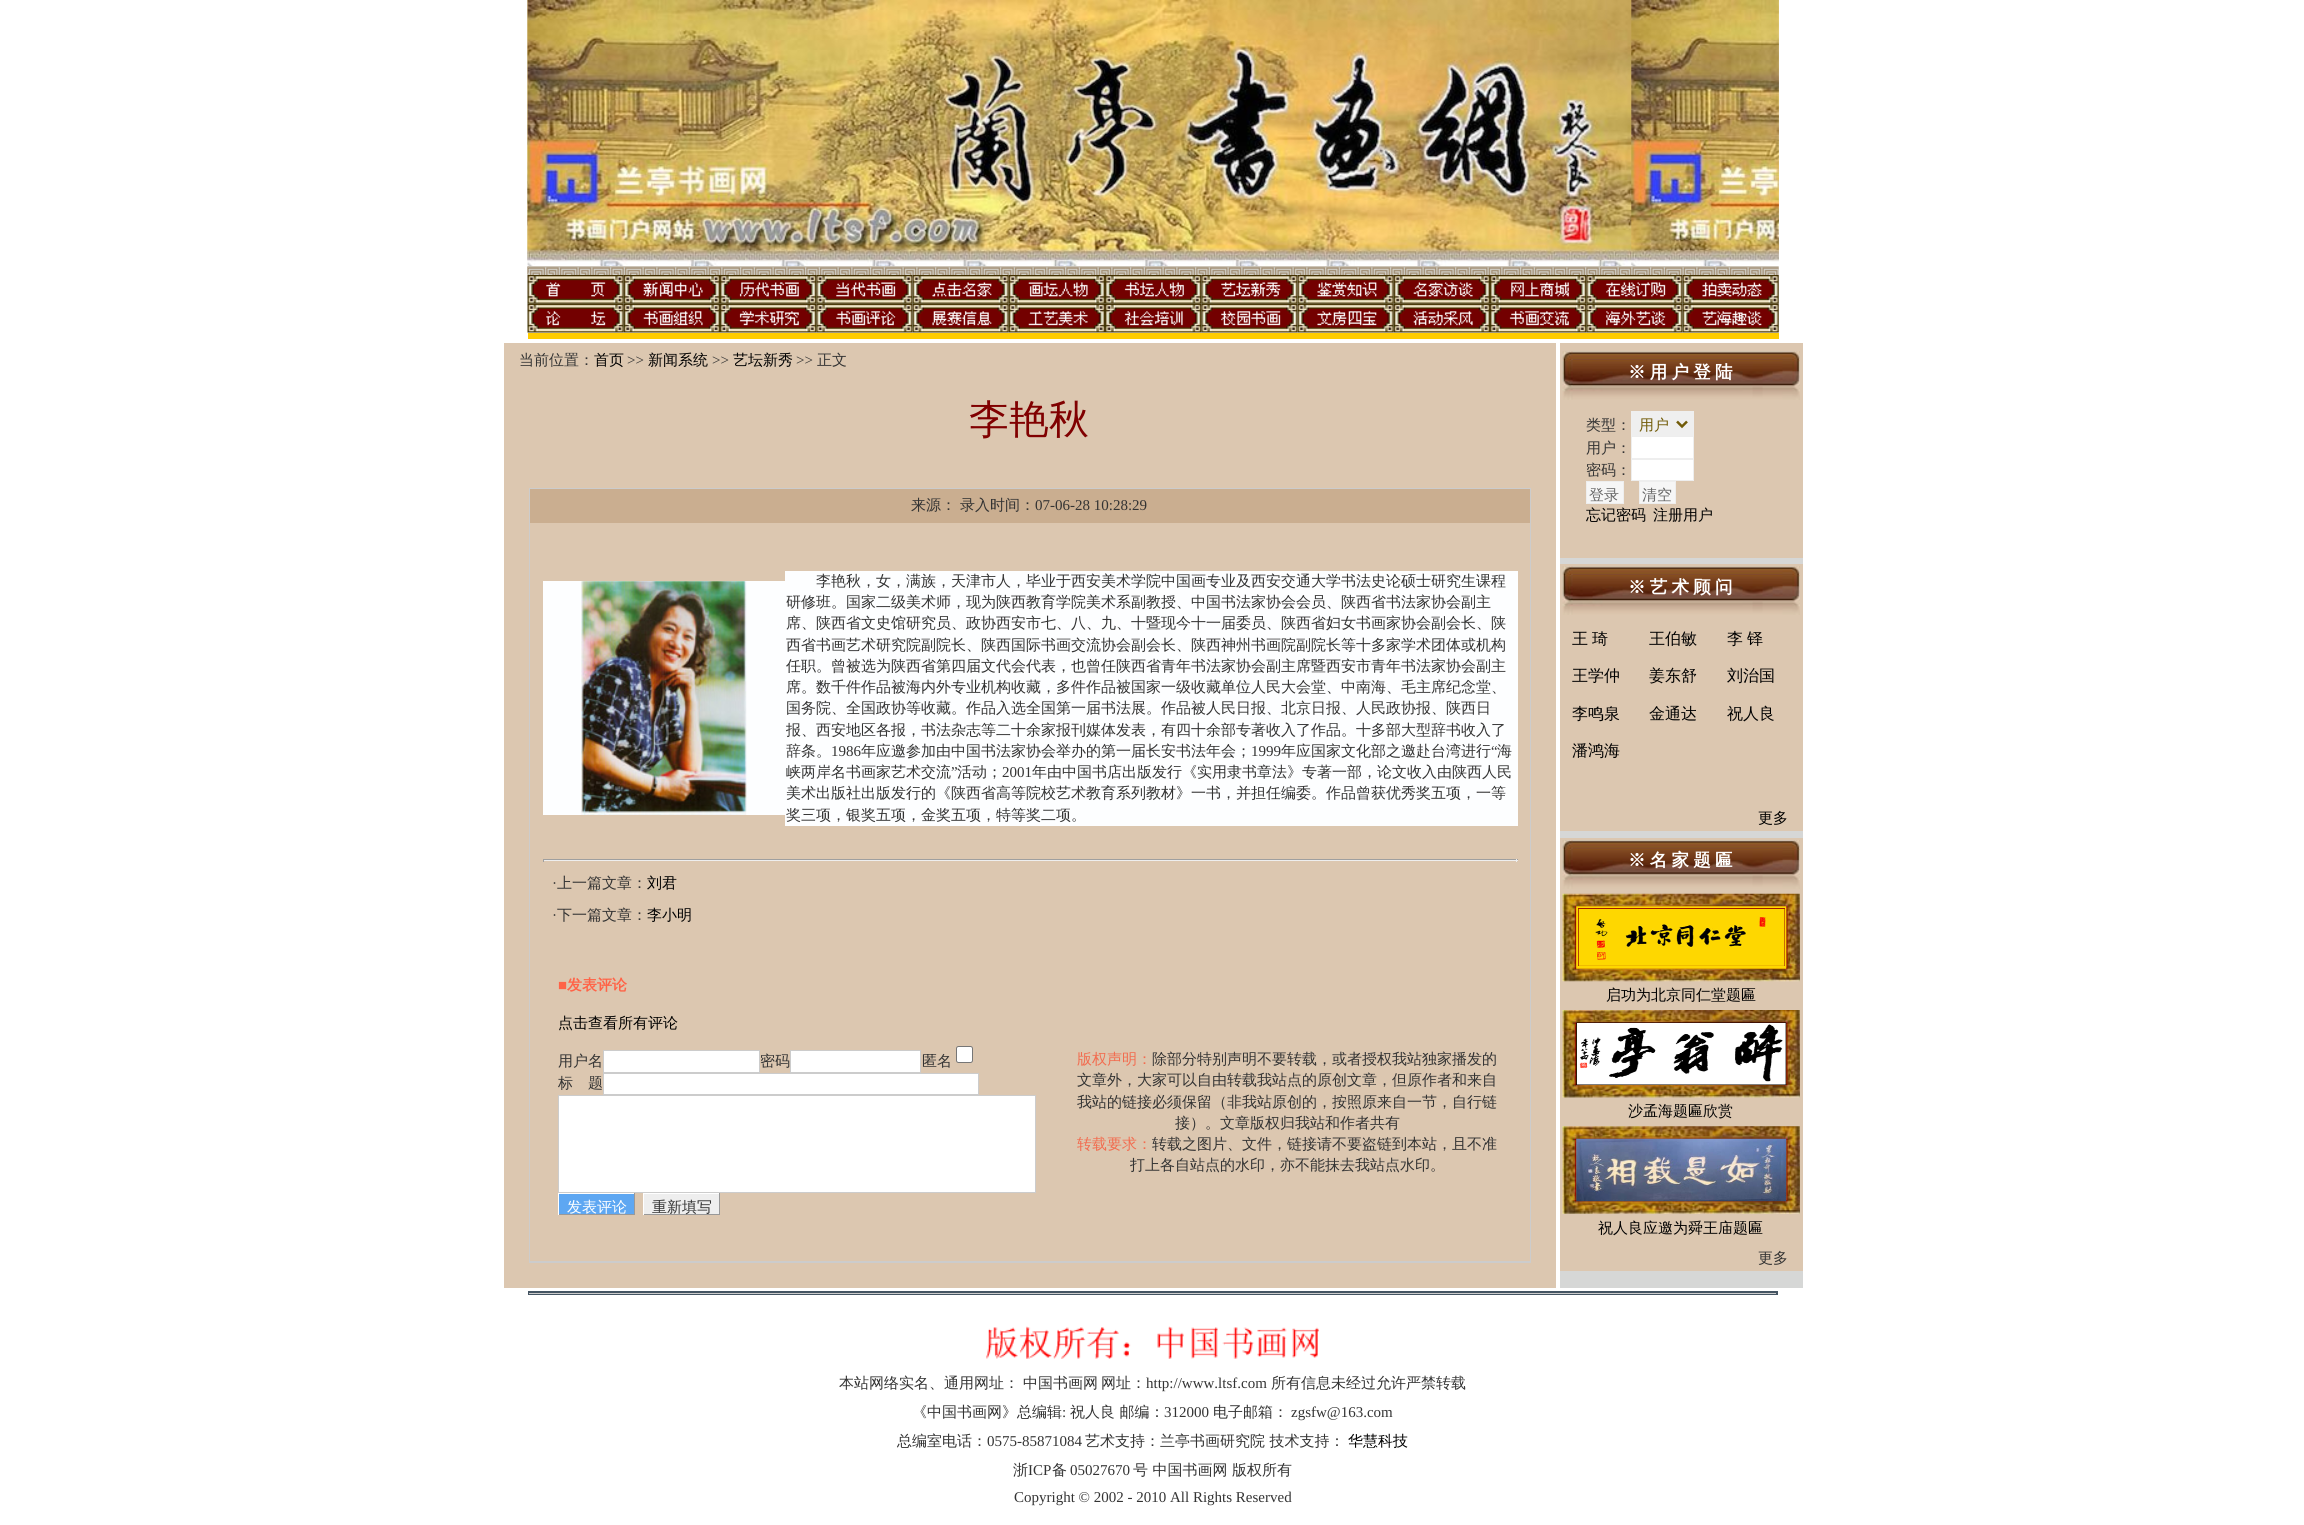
#include <cairo/cairo.h>
#include <math.h>
#include <stddef.h>


static void draw_spaced(cairo_t *cr, double x, double y, const char *s, double letter, double word) {
  cairo_move_to(cr, x, y);
  while (*s) {
    char ch[5] = {0};
    int n = 0;
    do ch[n++] = *s++; while ((*s & 0xC0) == 0x80);
    cairo_show_text(cr, ch);
    cairo_rel_move_to(cr, letter + word * (*ch == ' '), 0);
  }
}

static void rounded_rect(cairo_t *cr, double x, double y, double w, double h, double r) {
  cairo_new_sub_path(cr);
  cairo_arc(cr, x + w - r, y + h - r, r, 0, M_PI / 2);
  cairo_arc(cr, x + r, y + h - r, r, M_PI / 2, M_PI);
  cairo_arc(cr, x + r, y + r, r, M_PI, 1.5 * M_PI);
  cairo_arc(cr, x + w - r, y + r, r, 1.5 * M_PI, 2 * M_PI);
  cairo_close_path(cr);
}

static void draw_image(cairo_t *cr, const char *path, double x, double y, double w, double h) {
  cairo_surface_t *image = cairo_image_surface_create_from_png(path);
  cairo_save(cr);
  cairo_set_source_surface(cr, image, x, y);
  cairo_rectangle(cr, x, y, w, h);
  cairo_fill(cr);
  cairo_restore(cr);
  cairo_surface_destroy(image);
}

static void draw(cairo_t *cr) {
  cairo_set_source_rgb(cr, 1, 1, 1);
  cairo_paint(cr);
  draw_image(cr, "images/1.png", 527, 0, 1252, 267);
  draw_image(cr, "images/2.png", 527, 266, 1252, 9);
  draw_image(cr, "images/3.png", 527, 266, 2, 9);
  draw_image(cr, "images/4.png", 527, 275, 97, 29);
  draw_image(cr, "images/5.png", 623, 275, 97, 29);
  draw_image(cr, "images/6.png", 720, 275, 97, 29);
  draw_image(cr, "images/7.png", 816, 275, 97, 29);
  draw_image(cr, "images/8.png", 912, 275, 97, 29);
  draw_image(cr, "images/9.png", 1008, 275, 97, 29);
  draw_image(cr, "images/10.png", 1105, 275, 97, 29);
  draw_image(cr, "images/11.png", 1201, 275, 97, 29);
  draw_image(cr, "images/12.png", 1297, 275, 97, 29);
  draw_image(cr, "images/13.png", 1393, 275, 97, 29);
  draw_image(cr, "images/14.png", 1490, 275, 97, 29);
  draw_image(cr, "images/15.png", 1586, 275, 97, 29);
  draw_image(cr, "images/16.png", 1682, 275, 97, 29);
  draw_image(cr, "images/17.png", 527, 303, 97, 30);
  draw_image(cr, "images/18.png", 623, 303, 97, 30);
  draw_image(cr, "images/19.png", 720, 303, 97, 30);
  draw_image(cr, "images/20.png", 816, 303, 97, 30);
  draw_image(cr, "images/21.png", 912, 303, 97, 30);
  draw_image(cr, "images/22.png", 1008, 303, 97, 30);
  draw_image(cr, "images/23.png", 1105, 303, 97, 30);
  draw_image(cr, "images/24.png", 1201, 303, 97, 30);
  draw_image(cr, "images/25.png", 1297, 303, 97, 30);
  draw_image(cr, "images/26.png", 1393, 303, 97, 30);
  draw_image(cr, "images/27.png", 1490, 303, 97, 30);
  draw_image(cr, "images/28.png", 1586, 303, 97, 30);
  draw_image(cr, "images/29.png", 1682, 303, 97, 30);
  cairo_set_source_rgb(cr, 1, 204 / 255.0, 0);
  cairo_rectangle(cr, 528, 333, 1251, 6);
  cairo_fill(cr);
  cairo_set_source_rgb(cr, 220 / 255.0, 199 / 255.0, 176 / 255.0);
  cairo_rectangle(cr, 504, 343, 1052, 945);
  cairo_fill(cr);
  cairo_set_source_rgb(cr, 204 / 255.0, 204 / 255.0, 204 / 255.0);
  cairo_rectangle(cr, 529, 488, 1002, 775);
  cairo_fill(cr);
  cairo_set_source_rgb(cr, 220 / 255.0, 199 / 255.0, 176 / 255.0);
  cairo_rectangle(cr, 530, 523, 1000, 738);
  cairo_fill(cr);
  cairo_set_source_rgb(cr, 202 / 255.0, 174 / 255.0, 144 / 255.0);
  cairo_rectangle(cr, 530, 489, 1000, 34);
  cairo_fill(cr);
  cairo_set_source_rgb(cr, 253 / 255.0, 254 / 255.0, 1);
  cairo_rectangle(cr, 543, 581, 242, 234);
  cairo_fill(cr);
  draw_image(cr, "images/30.png", 581, 581, 166, 234);
  cairo_rectangle(cr, 785, 571, 733, 255);
  cairo_fill(cr);
  cairo_set_source_rgb(cr, 159 / 255.0, 159 / 255.0, 159 / 255.0);
  cairo_rectangle(cr, 543, 859, 975, 1);
  cairo_fill(cr);
  cairo_set_source_rgb(cr, 238 / 255.0, 238 / 255.0, 238 / 255.0);
  cairo_rectangle(cr, 1516, 859, 1, 3);
  cairo_fill(cr);
  cairo_rectangle(cr, 543, 860, 975, 1);
  cairo_fill(cr);
  cairo_set_source_rgb(cr, 159 / 255.0, 159 / 255.0, 159 / 255.0);
  cairo_rectangle(cr, 543, 859, 1, 3);
  cairo_fill(cr);
  cairo_set_source_rgb(cr, 1, 1, 1);
  cairo_rectangle(cr, 603.5, 1050.5, 156, 22);
  cairo_fill_preserve(cr);
  cairo_set_source_rgb(cr, 204 / 255.0, 204 / 255.0, 204 / 255.0);
  cairo_set_line_width(cr, 1);
  cairo_stroke(cr);
  cairo_set_source_rgb(cr, 1, 1, 1);
  cairo_rectangle(cr, 790.5, 1050.5, 130, 22);
  cairo_fill_preserve(cr);
  cairo_set_source_rgb(cr, 204 / 255.0, 204 / 255.0, 204 / 255.0);
  cairo_stroke(cr);
  cairo_set_source_rgb(cr, 1, 1, 1);
  rounded_rect(cr, 956.5, 1046.5, 16, 16, 2);
  cairo_fill_preserve(cr);
  cairo_set_source_rgb(cr, 118 / 255.0, 118 / 255.0, 118 / 255.0);
  cairo_stroke(cr);
  cairo_set_source_rgb(cr, 1, 1, 1);
  cairo_rectangle(cr, 603.5, 1073.5, 375, 21);
  cairo_fill_preserve(cr);
  cairo_set_source_rgb(cr, 204 / 255.0, 204 / 255.0, 204 / 255.0);
  cairo_stroke(cr);
  cairo_set_source_rgb(cr, 1, 1, 1);
  cairo_rectangle(cr, 558.5, 1095.5, 477, 97);
  cairo_fill_preserve(cr);
  cairo_set_source_rgb(cr, 204 / 255.0, 204 / 255.0, 204 / 255.0);
  cairo_stroke(cr);
  cairo_set_source_rgb(cr, 94 / 255.0, 167 / 255.0, 242 / 255.0);
  cairo_rectangle(cr, 559, 1194, 75, 20);
  cairo_fill(cr);
  cairo_set_source_rgb(cr, 1, 1, 1);
  cairo_rectangle(cr, 558, 1193, 77, 1);
  cairo_fill(cr);
  cairo_set_source_rgb(cr, 153 / 255.0, 153 / 255.0, 153 / 255.0);
  cairo_rectangle(cr, 634, 1193, 1, 22);
  cairo_fill(cr);
  cairo_rectangle(cr, 558, 1214, 77, 1);
  cairo_fill(cr);
  cairo_set_source_rgb(cr, 1, 1, 1);
  cairo_rectangle(cr, 558, 1193, 1, 22);
  cairo_fill(cr);
  cairo_set_source_rgb(cr, 238 / 255.0, 238 / 255.0, 238 / 255.0);
  cairo_rectangle(cr, 644, 1194, 75, 20);
  cairo_fill(cr);
  cairo_set_source_rgb(cr, 1, 1, 1);
  cairo_rectangle(cr, 643, 1193, 77, 1);
  cairo_fill(cr);
  cairo_set_source_rgb(cr, 153 / 255.0, 153 / 255.0, 153 / 255.0);
  cairo_rectangle(cr, 719, 1193, 1, 22);
  cairo_fill(cr);
  cairo_rectangle(cr, 643, 1214, 77, 1);
  cairo_fill(cr);
  cairo_set_source_rgb(cr, 1, 1, 1);
  cairo_rectangle(cr, 643, 1193, 1, 22);
  cairo_fill(cr);
  cairo_set_source_rgb(cr, 214 / 255.0, 215 / 255.0, 214 / 255.0);
  cairo_rectangle(cr, 1560, 558, 243, 730);
  cairo_fill(cr);
  cairo_set_source_rgb(cr, 220 / 255.0, 199 / 255.0, 176 / 255.0);
  cairo_rectangle(cr, 1560, 343, 243, 215);
  cairo_fill(cr);
  draw_image(cr, "images/31.png", 1562, 351, 238, 49);
  cairo_set_source_rgb(cr, 239 / 255.0, 239 / 255.0, 239 / 255.0);
  cairo_rectangle(cr, 1631, 411, 63, 25);
  cairo_fill(cr);
  cairo_new_path(cr);
  cairo_move_to(cr, 1677, 421.5);
  cairo_line_to(cr, 1682, 426.5);
  cairo_line_to(cr, 1687, 421.5);
  cairo_set_source_rgb(cr, 113 / 255.0, 91 / 255.0, 8 / 255.0);
  cairo_set_line_width(cr, 2.5);
  cairo_stroke(cr);
  cairo_set_source_rgb(cr, 1, 1, 1);
  cairo_rectangle(cr, 1631.5, 436.5, 62, 22);
  cairo_fill_preserve(cr);
  cairo_set_source_rgb(cr, 238 / 255.0, 238 / 255.0, 238 / 255.0);
  cairo_set_line_width(cr, 1);
  cairo_stroke(cr);
  cairo_set_source_rgb(cr, 1, 1, 1);
  cairo_rectangle(cr, 1631.5, 459.5, 62, 21);
  cairo_fill_preserve(cr);
  cairo_set_source_rgb(cr, 238 / 255.0, 238 / 255.0, 238 / 255.0);
  cairo_stroke(cr);
  cairo_set_source_rgb(cr, 246 / 255.0, 246 / 255.0, 246 / 255.0);
  cairo_rectangle(cr, 1586.5, 481.5, 37, 22);
  cairo_fill_preserve(cr);
  cairo_set_source_rgb(cr, 238 / 255.0, 238 / 255.0, 238 / 255.0);
  cairo_stroke(cr);
  cairo_set_source_rgb(cr, 246 / 255.0, 246 / 255.0, 246 / 255.0);
  cairo_rectangle(cr, 1639.5, 481.5, 36, 22);
  cairo_fill_preserve(cr);
  cairo_set_source_rgb(cr, 238 / 255.0, 238 / 255.0, 238 / 255.0);
  cairo_stroke(cr);
  cairo_set_source_rgb(cr, 220 / 255.0, 199 / 255.0, 176 / 255.0);
  cairo_rectangle(cr, 1560, 564, 243, 267);
  cairo_fill(cr);
  draw_image(cr, "images/32.png", 1562, 566, 238, 49);
  cairo_rectangle(cr, 1560, 838, 243, 433);
  cairo_fill(cr);
  draw_image(cr, "images/33.png", 1562, 840, 238, 49);
  draw_image(cr, "images/34.png", 1562, 893, 238, 89);
  draw_image(cr, "images/35.png", 1576, 906, 211, 63);
  draw_image(cr, "images/36.png", 1562, 1010, 238, 88);
  draw_image(cr, "images/37.png", 1576, 1022, 211, 63);
  draw_image(cr, "images/38.png", 1562, 1126, 238, 88);
  draw_image(cr, "images/39.png", 1576, 1138, 211, 64);
  cairo_set_source_rgb(cr, 69 / 255.0, 85 / 255.0, 99 / 255.0);
  cairo_rectangle(cr, 528, 1291, 1250, 4);
  cairo_fill(cr);
  cairo_set_source_rgb(cr, 204 / 255.0, 204 / 255.0, 204 / 255.0);
  cairo_rectangle(cr, 529, 1293, 1247, 1);
  cairo_fill(cr);
  draw_image(cr, "images/40.png", 986, 1326, 333, 33);
  cairo_select_font_face(cr, "WenQuanYi Zen Hei Medium", CAIRO_FONT_SLANT_NORMAL, CAIRO_FONT_WEIGHT_NORMAL);
  cairo_set_font_size(cr, 15);
  cairo_set_source_rgb(cr, 51 / 255.0, 51 / 255.0, 51 / 255.0);
  cairo_move_to(cr, 519, 365);
  cairo_show_text(cr, "当前位置：");
  cairo_set_source_rgb(cr, 0, 0, 0);
  cairo_move_to(cr, 594, 365);
  cairo_show_text(cr, "首页");
  cairo_select_font_face(cr, "Liberation Serif", CAIRO_FONT_SLANT_NORMAL, CAIRO_FONT_WEIGHT_NORMAL);
  cairo_set_source_rgb(cr, 51 / 255.0, 51 / 255.0, 51 / 255.0);
  cairo_move_to(cr, 627, 365);
  cairo_show_text(cr, ">>");
  cairo_select_font_face(cr, "WenQuanYi Zen Hei Medium", CAIRO_FONT_SLANT_NORMAL, CAIRO_FONT_WEIGHT_NORMAL);
  cairo_set_source_rgb(cr, 0, 0, 0);
  cairo_move_to(cr, 648, 365);
  cairo_show_text(cr, "新闻系统");
  cairo_select_font_face(cr, "Liberation Serif", CAIRO_FONT_SLANT_NORMAL, CAIRO_FONT_WEIGHT_NORMAL);
  cairo_set_source_rgb(cr, 51 / 255.0, 51 / 255.0, 51 / 255.0);
  cairo_move_to(cr, 712, 365);
  cairo_show_text(cr, ">>");
  cairo_select_font_face(cr, "WenQuanYi Zen Hei Medium", CAIRO_FONT_SLANT_NORMAL, CAIRO_FONT_WEIGHT_NORMAL);
  cairo_set_source_rgb(cr, 0, 0, 0);
  cairo_move_to(cr, 733, 365);
  cairo_show_text(cr, "艺坛新秀");
  cairo_select_font_face(cr, "Liberation Serif", CAIRO_FONT_SLANT_NORMAL, CAIRO_FONT_WEIGHT_NORMAL);
  cairo_set_source_rgb(cr, 51 / 255.0, 51 / 255.0, 51 / 255.0);
  cairo_move_to(cr, 796, 365);
  cairo_show_text(cr, ">>");
  cairo_select_font_face(cr, "WenQuanYi Zen Hei Medium", CAIRO_FONT_SLANT_NORMAL, CAIRO_FONT_WEIGHT_NORMAL);
  cairo_move_to(cr, 817, 365);
  cairo_show_text(cr, "正文");
  cairo_set_font_size(cr, 40);
  cairo_set_source_rgb(cr, 128 / 255.0, 0, 0);
  cairo_move_to(cr, 969, 433);
  cairo_show_text(cr, "李艳秋");
  cairo_set_font_size(cr, 15);
  cairo_set_source_rgb(cr, 51 / 255.0, 51 / 255.0, 51 / 255.0);
  cairo_move_to(cr, 911, 510);
  cairo_show_text(cr, "来源：");
  cairo_move_to(cr, 960, 510);
  cairo_show_text(cr, "录入时间：");
  cairo_select_font_face(cr, "Liberation Serif", CAIRO_FONT_SLANT_NORMAL, CAIRO_FONT_WEIGHT_NORMAL);
  cairo_move_to(cr, 1035, 510);
  cairo_show_text(cr, "07-06-28 10:28:29");
  cairo_select_font_face(cr, "WenQuanYi Zen Hei Medium", CAIRO_FONT_SLANT_NORMAL, CAIRO_FONT_WEIGHT_NORMAL);
  cairo_move_to(cr, 816, 586);
  cairo_show_text(cr, "李艳秋，女，满族，天津市人，毕业于西安美术学院中国画专业及西安交通大学书法史论硕士研究生课程");
  cairo_move_to(cr, 786, 607);
  cairo_show_text(cr, "研修班。国家二级美术师，现为陕西教育学院美术系副教授、中国书法家协会会员、陕西省书法家协会副主");
  cairo_move_to(cr, 786, 628);
  cairo_show_text(cr, "席、陕西省文史馆研究员、政协西安市七、八、九、十暨现今十一届委员、陕西省妇女书画家协会副会长、陕");
  cairo_move_to(cr, 786, 650);
  cairo_show_text(cr, "西省书画艺术研究院副院长、陕西国际书画交流协会副会长、陕西神州书画院副院长等十多家学术团体或机构");
  cairo_move_to(cr, 786, 671);
  cairo_show_text(cr, "任职。曾被选为陕西省第四届文代会代表，也曾任陕西省青年书法家协会副主席暨西安市青年书法家协会副主");
  cairo_move_to(cr, 786, 692);
  cairo_show_text(cr, "席。数千件作品被海内外专业机构收藏，多件作品被国家一级收藏单位人民大会堂、中南海、毛主席纪念堂、");
  cairo_move_to(cr, 786, 713);
  cairo_show_text(cr, "国务院、全国政协等收藏。作品入选全国第一届书法展。作品被人民日报、北京日报、人民政协报、陕西日");
  cairo_move_to(cr, 786, 735);
  cairo_show_text(cr, "报、西安地区各报，书法杂志等二十余家报刊媒体发表，有四十余部专著收入了作品。十多部大型辞书收入了");
  cairo_move_to(cr, 786, 756);
  cairo_show_text(cr, "辞条。");
  cairo_select_font_face(cr, "Liberation Serif", CAIRO_FONT_SLANT_NORMAL, CAIRO_FONT_WEIGHT_NORMAL);
  cairo_move_to(cr, 831, 756);
  cairo_show_text(cr, "1986");
  cairo_select_font_face(cr, "WenQuanYi Zen Hei Medium", CAIRO_FONT_SLANT_NORMAL, CAIRO_FONT_WEIGHT_NORMAL);
  cairo_move_to(cr, 861, 756);
  cairo_show_text(cr, "年应邀参加由中国书法家协会举办的第一届长安书法年会；");
  cairo_select_font_face(cr, "Liberation Serif", CAIRO_FONT_SLANT_NORMAL, CAIRO_FONT_WEIGHT_NORMAL);
  cairo_move_to(cr, 1251, 756);
  cairo_show_text(cr, "1999");
  cairo_select_font_face(cr, "WenQuanYi Zen Hei Medium", CAIRO_FONT_SLANT_NORMAL, CAIRO_FONT_WEIGHT_NORMAL);
  cairo_move_to(cr, 1281, 756);
  cairo_show_text(cr, "年应国家文化部之邀赴台湾进行");
  cairo_select_font_face(cr, "Liberation Serif", CAIRO_FONT_SLANT_NORMAL, CAIRO_FONT_WEIGHT_NORMAL);
  cairo_move_to(cr, 1491, 756);
  cairo_show_text(cr, "“");
  cairo_select_font_face(cr, "WenQuanYi Zen Hei Medium", CAIRO_FONT_SLANT_NORMAL, CAIRO_FONT_WEIGHT_NORMAL);
  cairo_move_to(cr, 1497, 756);
  cairo_show_text(cr, "海");
  cairo_move_to(cr, 786, 777);
  cairo_show_text(cr, "峡两岸名书画家艺术交流");
  cairo_select_font_face(cr, "Liberation Serif", CAIRO_FONT_SLANT_NORMAL, CAIRO_FONT_WEIGHT_NORMAL);
  cairo_move_to(cr, 951, 777);
  cairo_show_text(cr, "”");
  cairo_select_font_face(cr, "WenQuanYi Zen Hei Medium", CAIRO_FONT_SLANT_NORMAL, CAIRO_FONT_WEIGHT_NORMAL);
  cairo_move_to(cr, 957, 777);
  cairo_show_text(cr, "活动；");
  cairo_select_font_face(cr, "Liberation Serif", CAIRO_FONT_SLANT_NORMAL, CAIRO_FONT_WEIGHT_NORMAL);
  cairo_move_to(cr, 1002, 777);
  cairo_show_text(cr, "2001");
  cairo_select_font_face(cr, "WenQuanYi Zen Hei Medium", CAIRO_FONT_SLANT_NORMAL, CAIRO_FONT_WEIGHT_NORMAL);
  cairo_move_to(cr, 1032, 777);
  cairo_show_text(cr, "年由中国书店出版发行《实用隶书章法》专著一部，论文收入由陕西人民");
  cairo_move_to(cr, 786, 798);
  cairo_show_text(cr, "美术出版社出版发行的《陕西省高等院校艺术教育系列教材》一书，并担任编委。作品曾获优秀奖五项，一等");
  cairo_move_to(cr, 786, 820);
  cairo_show_text(cr, "奖三项，银奖五项，金奖五项，特等奖二项。");
  cairo_select_font_face(cr, "Liberation Serif", CAIRO_FONT_SLANT_NORMAL, CAIRO_FONT_WEIGHT_NORMAL);
  cairo_move_to(cr, 552, 888);
  cairo_show_text(cr, "·");
  cairo_select_font_face(cr, "WenQuanYi Zen Hei Medium", CAIRO_FONT_SLANT_NORMAL, CAIRO_FONT_WEIGHT_NORMAL);
  cairo_move_to(cr, 557, 888);
  cairo_show_text(cr, "上一篇文章：");
  cairo_set_source_rgb(cr, 0, 0, 0);
  cairo_move_to(cr, 647, 888);
  cairo_show_text(cr, "刘君");
  cairo_select_font_face(cr, "Liberation Serif", CAIRO_FONT_SLANT_NORMAL, CAIRO_FONT_WEIGHT_NORMAL);
  cairo_set_source_rgb(cr, 51 / 255.0, 51 / 255.0, 51 / 255.0);
  cairo_move_to(cr, 552, 920);
  cairo_show_text(cr, "·");
  cairo_select_font_face(cr, "WenQuanYi Zen Hei Medium", CAIRO_FONT_SLANT_NORMAL, CAIRO_FONT_WEIGHT_NORMAL);
  cairo_move_to(cr, 557, 920);
  cairo_show_text(cr, "下一篇文章：");
  cairo_set_source_rgb(cr, 0, 0, 0);
  cairo_move_to(cr, 647, 920);
  cairo_show_text(cr, "李小明");
  cairo_select_font_face(cr, "Liberation Serif", CAIRO_FONT_SLANT_NORMAL, CAIRO_FONT_WEIGHT_NORMAL);
  cairo_set_source_rgb(cr, 1, 99 / 255.0, 71 / 255.0);
  cairo_move_to(cr, 558, 990);
  cairo_show_text(cr, "■");
  cairo_select_font_face(cr, "WenQuanYi Zen Hei", CAIRO_FONT_SLANT_NORMAL, CAIRO_FONT_WEIGHT_BOLD);
  cairo_move_to(cr, 567, 990);
  cairo_show_text(cr, "发表评论");
  cairo_select_font_face(cr, "WenQuanYi Zen Hei Medium", CAIRO_FONT_SLANT_NORMAL, CAIRO_FONT_WEIGHT_NORMAL);
  cairo_set_source_rgb(cr, 0, 0, 0);
  cairo_move_to(cr, 558, 1028);
  cairo_show_text(cr, "点击查看所有评论");
  cairo_set_source_rgb(cr, 51 / 255.0, 51 / 255.0, 51 / 255.0);
  cairo_move_to(cr, 558, 1066);
  cairo_show_text(cr, "用户名");
  cairo_move_to(cr, 760, 1066);
  cairo_show_text(cr, "密码");
  cairo_move_to(cr, 922, 1066);
  cairo_show_text(cr, "匿名");
  cairo_move_to(cr, 558, 1088);
  cairo_show_text(cr, "标　题");
  cairo_set_source_rgb(cr, 1, 1, 1);
  cairo_move_to(cr, 567, 1212);
  cairo_show_text(cr, "发表评论");
  cairo_set_source_rgb(cr, 51 / 255.0, 51 / 255.0, 51 / 255.0);
  cairo_move_to(cr, 652, 1212);
  cairo_show_text(cr, "重新填写");
  cairo_set_source_rgb(cr, 242 / 255.0, 108 / 255.0, 79 / 255.0);
  cairo_move_to(cr, 1077, 1064);
  cairo_show_text(cr, "版权声明：");
  cairo_set_source_rgb(cr, 51 / 255.0, 51 / 255.0, 51 / 255.0);
  cairo_move_to(cr, 1152, 1064);
  cairo_show_text(cr, "除部分特别声明不要转载，或者授权我站独家播发的");
  cairo_move_to(cr, 1077, 1085);
  cairo_show_text(cr, "文章外，大家可以自由转载我站点的原创文章，但原作者和来自");
  cairo_move_to(cr, 1077, 1107);
  cairo_show_text(cr, "我站的链接必须保留（非我站原创的，按照原来自一节，自行链");
  cairo_move_to(cr, 1175, 1128);
  cairo_show_text(cr, "接）。文章版权归我站和作者共有");
  cairo_set_source_rgb(cr, 242 / 255.0, 108 / 255.0, 79 / 255.0);
  cairo_move_to(cr, 1077, 1149);
  cairo_show_text(cr, "转载要求：");
  cairo_set_source_rgb(cr, 51 / 255.0, 51 / 255.0, 51 / 255.0);
  cairo_move_to(cr, 1152, 1149);
  cairo_show_text(cr, "转载之图片、文件，链接请不要盗链到本站，且不准");
  cairo_move_to(cr, 1130, 1170);
  cairo_show_text(cr, "打上各自站点的水印，亦不能抹去我站点水印。");
  cairo_select_font_face(cr, "WenQuanYi Zen Hei", CAIRO_FONT_SLANT_NORMAL, CAIRO_FONT_WEIGHT_BOLD);
  cairo_set_font_size(cr, 17.5);
  cairo_set_source_rgb(cr, 1, 1, 1);
  draw_spaced(cr, 1628, 378, "※ 用 户 登 陆", 0, -1);
  cairo_select_font_face(cr, "WenQuanYi Zen Hei Medium", CAIRO_FONT_SLANT_NORMAL, CAIRO_FONT_WEIGHT_NORMAL);
  cairo_set_font_size(cr, 15);
  cairo_set_source_rgb(cr, 51 / 255.0, 51 / 255.0, 51 / 255.0);
  cairo_move_to(cr, 1586, 430);
  cairo_show_text(cr, "类型：");
  cairo_set_source_rgb(cr, 113 / 255.0, 91 / 255.0, 8 / 255.0);
  cairo_move_to(cr, 1639, 430);
  cairo_show_text(cr, "用户");
  cairo_set_source_rgb(cr, 51 / 255.0, 51 / 255.0, 51 / 255.0);
  cairo_move_to(cr, 1586, 453);
  cairo_show_text(cr, "用户：");
  cairo_move_to(cr, 1586, 475);
  cairo_show_text(cr, "密码：");
  cairo_set_source_rgb(cr, 102 / 255.0, 102 / 255.0, 102 / 255.0);
  cairo_move_to(cr, 1589, 500);
  cairo_show_text(cr, "登录");
  cairo_move_to(cr, 1642, 500);
  cairo_show_text(cr, "清空");
  cairo_set_source_rgb(cr, 0, 0, 0);
  cairo_move_to(cr, 1586, 520);
  cairo_show_text(cr, "忘记密码");
  cairo_move_to(cr, 1653, 520);
  cairo_show_text(cr, "注册用户");
  cairo_select_font_face(cr, "WenQuanYi Zen Hei", CAIRO_FONT_SLANT_NORMAL, CAIRO_FONT_WEIGHT_BOLD);
  cairo_set_font_size(cr, 17.5);
  cairo_set_source_rgb(cr, 1, 1, 1);
  draw_spaced(cr, 1628, 593, "※ 艺 术 顾 问", 0, -1);
  cairo_select_font_face(cr, "WenQuanYi Zen Hei Medium", CAIRO_FONT_SLANT_NORMAL, CAIRO_FONT_WEIGHT_NORMAL);
  cairo_set_font_size(cr, 16);
  cairo_set_source_rgb(cr, 0, 0, 0);
  cairo_move_to(cr, 1572, 644);
  cairo_show_text(cr, "王");
  cairo_move_to(cr, 1592, 644);
  cairo_show_text(cr, "琦");
  cairo_move_to(cr, 1649, 644);
  cairo_show_text(cr, "王伯敏");
  cairo_move_to(cr, 1727, 644);
  cairo_show_text(cr, "李");
  cairo_move_to(cr, 1747, 644);
  cairo_show_text(cr, "铎");
  cairo_move_to(cr, 1572, 681);
  cairo_show_text(cr, "王学仲");
  cairo_move_to(cr, 1649, 681);
  cairo_show_text(cr, "姜东舒");
  cairo_move_to(cr, 1727, 681);
  cairo_show_text(cr, "刘治国");
  cairo_move_to(cr, 1572, 719);
  cairo_show_text(cr, "李鸣泉");
  cairo_move_to(cr, 1649, 719);
  cairo_show_text(cr, "金通达");
  cairo_move_to(cr, 1727, 719);
  cairo_show_text(cr, "祝人良");
  cairo_move_to(cr, 1572, 756);
  cairo_show_text(cr, "潘鸿海");
  cairo_set_font_size(cr, 15);
  cairo_move_to(cr, 1758, 823);
  cairo_show_text(cr, "更多");
  cairo_select_font_face(cr, "WenQuanYi Zen Hei", CAIRO_FONT_SLANT_NORMAL, CAIRO_FONT_WEIGHT_BOLD);
  cairo_set_font_size(cr, 17.5);
  cairo_set_source_rgb(cr, 1, 1, 1);
  draw_spaced(cr, 1628, 866, "※ 名 家 题 匾", 0, -1);
  cairo_select_font_face(cr, "WenQuanYi Zen Hei Medium", CAIRO_FONT_SLANT_NORMAL, CAIRO_FONT_WEIGHT_NORMAL);
  cairo_set_font_size(cr, 15);
  cairo_set_source_rgb(cr, 0, 0, 0);
  cairo_move_to(cr, 1606, 1000);
  cairo_show_text(cr, "启功为北京同仁堂题匾");
  cairo_move_to(cr, 1628, 1116);
  cairo_show_text(cr, "沙孟海题匾欣赏");
  cairo_move_to(cr, 1598, 1233);
  cairo_show_text(cr, "祝人良应邀为舜王庙题匾");
  cairo_set_source_rgb(cr, 51 / 255.0, 51 / 255.0, 51 / 255.0);
  cairo_move_to(cr, 1758, 1263);
  cairo_show_text(cr, "更多");
  cairo_move_to(cr, 839, 1388);
  cairo_show_text(cr, "本站网络实名、通用网址：");
  cairo_move_to(cr, 1023, 1388);
  cairo_show_text(cr, "中国书画网");
  cairo_move_to(cr, 1101, 1388);
  cairo_show_text(cr, "网址：");
  cairo_select_font_face(cr, "Liberation Serif", CAIRO_FONT_SLANT_NORMAL, CAIRO_FONT_WEIGHT_NORMAL);
  cairo_move_to(cr, 1146, 1388);
  cairo_show_text(cr, "http://www.ltsf.com");
  cairo_select_font_face(cr, "WenQuanYi Zen Hei Medium", CAIRO_FONT_SLANT_NORMAL, CAIRO_FONT_WEIGHT_NORMAL);
  cairo_move_to(cr, 1271, 1388);
  cairo_show_text(cr, "所有信息未经过允许严禁转载");
  cairo_move_to(cr, 912, 1417);
  cairo_show_text(cr, "《中国书画网》总编辑");
  cairo_select_font_face(cr, "Liberation Serif", CAIRO_FONT_SLANT_NORMAL, CAIRO_FONT_WEIGHT_NORMAL);
  cairo_move_to(cr, 1062, 1417);
  cairo_show_text(cr, ":");
  cairo_select_font_face(cr, "WenQuanYi Zen Hei Medium", CAIRO_FONT_SLANT_NORMAL, CAIRO_FONT_WEIGHT_NORMAL);
  cairo_move_to(cr, 1070, 1417);
  cairo_show_text(cr, "祝人良 邮编：");
  cairo_select_font_face(cr, "Liberation Serif", CAIRO_FONT_SLANT_NORMAL, CAIRO_FONT_WEIGHT_NORMAL);
  cairo_move_to(cr, 1164, 1417);
  cairo_show_text(cr, "312000");
  cairo_select_font_face(cr, "WenQuanYi Zen Hei Medium", CAIRO_FONT_SLANT_NORMAL, CAIRO_FONT_WEIGHT_NORMAL);
  cairo_move_to(cr, 1213, 1417);
  cairo_show_text(cr, "电子邮箱：");
  cairo_select_font_face(cr, "Liberation Serif", CAIRO_FONT_SLANT_NORMAL, CAIRO_FONT_WEIGHT_NORMAL);
  cairo_move_to(cr, 1291, 1417);
  cairo_show_text(cr, "zgsfw@163.com");
  cairo_select_font_face(cr, "WenQuanYi Zen Hei Medium", CAIRO_FONT_SLANT_NORMAL, CAIRO_FONT_WEIGHT_NORMAL);
  cairo_move_to(cr, 897, 1446);
  cairo_show_text(cr, "总编室电话：");
  cairo_select_font_face(cr, "Liberation Serif", CAIRO_FONT_SLANT_NORMAL, CAIRO_FONT_WEIGHT_NORMAL);
  cairo_move_to(cr, 987, 1446);
  cairo_show_text(cr, "0575-85871084");
  cairo_select_font_face(cr, "WenQuanYi Zen Hei Medium", CAIRO_FONT_SLANT_NORMAL, CAIRO_FONT_WEIGHT_NORMAL);
  cairo_move_to(cr, 1085, 1446);
  cairo_show_text(cr, "艺术支持：兰亭书画研究院 技术支持：");
  cairo_set_source_rgb(cr, 0, 0, 0);
  cairo_move_to(cr, 1348, 1446);
  cairo_show_text(cr, "华慧科技");
  cairo_set_source_rgb(cr, 51 / 255.0, 51 / 255.0, 51 / 255.0);
  cairo_move_to(cr, 1013, 1475);
  cairo_show_text(cr, "浙");
  cairo_select_font_face(cr, "Liberation Serif", CAIRO_FONT_SLANT_NORMAL, CAIRO_FONT_WEIGHT_NORMAL);
  cairo_move_to(cr, 1028, 1475);
  cairo_show_text(cr, "ICP");
  cairo_select_font_face(cr, "WenQuanYi Zen Hei Medium", CAIRO_FONT_SLANT_NORMAL, CAIRO_FONT_WEIGHT_NORMAL);
  cairo_move_to(cr, 1052, 1475);
  cairo_show_text(cr, "备");
  cairo_select_font_face(cr, "Liberation Serif", CAIRO_FONT_SLANT_NORMAL, CAIRO_FONT_WEIGHT_NORMAL);
  cairo_move_to(cr, 1070, 1475);
  cairo_show_text(cr, "05027670");
  cairo_select_font_face(cr, "WenQuanYi Zen Hei Medium", CAIRO_FONT_SLANT_NORMAL, CAIRO_FONT_WEIGHT_NORMAL);
  cairo_move_to(cr, 1133, 1475);
  cairo_show_text(cr, "号 中国书画网 版权所有");
  cairo_select_font_face(cr, "Liberation Serif", CAIRO_FONT_SLANT_NORMAL, CAIRO_FONT_WEIGHT_NORMAL);
  cairo_move_to(cr, 1014, 1502);
  cairo_show_text(cr, "Copyright © 2002 - 2010 All Rights Reserved");
}

int main(void) {
  cairo_surface_t *surface = cairo_image_surface_create(CAIRO_FORMAT_RGB24, 2304, 1525);
  cairo_t *cr = cairo_create(surface);
  cairo_font_options_t *options = cairo_font_options_create();
  cairo_font_options_set_hint_metrics(options, CAIRO_HINT_METRICS_OFF);
  cairo_font_options_set_hint_style(options, CAIRO_HINT_STYLE_NONE);
  cairo_set_font_options(cr, options);
  cairo_set_miter_limit(cr, 4);
  draw(cr);
  cairo_surface_write_to_png(surface, "out.png");
  cairo_font_options_destroy(options);
  cairo_destroy(cr);
  cairo_surface_destroy(surface);
  return 0;
}
